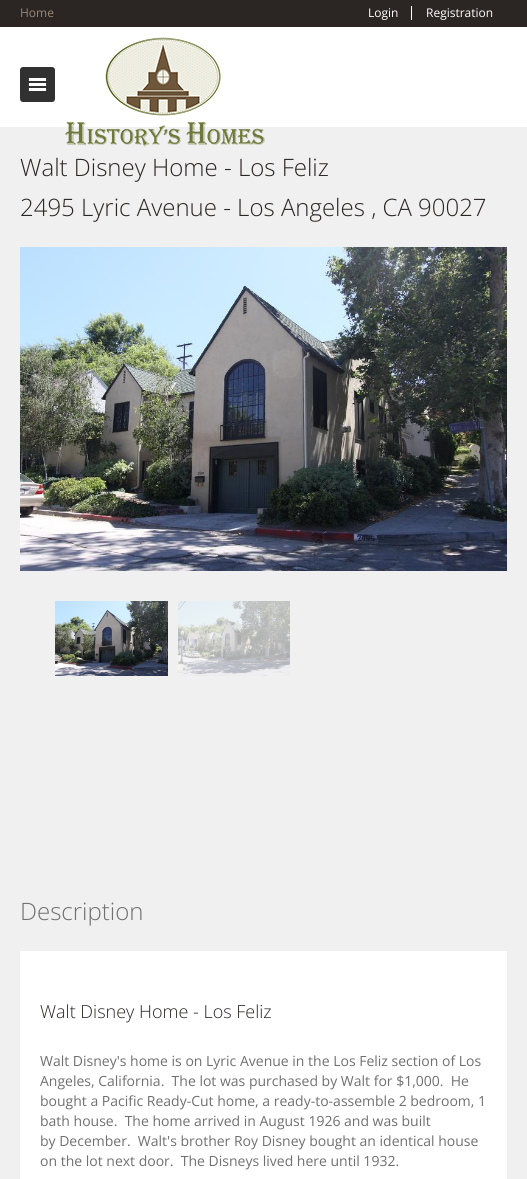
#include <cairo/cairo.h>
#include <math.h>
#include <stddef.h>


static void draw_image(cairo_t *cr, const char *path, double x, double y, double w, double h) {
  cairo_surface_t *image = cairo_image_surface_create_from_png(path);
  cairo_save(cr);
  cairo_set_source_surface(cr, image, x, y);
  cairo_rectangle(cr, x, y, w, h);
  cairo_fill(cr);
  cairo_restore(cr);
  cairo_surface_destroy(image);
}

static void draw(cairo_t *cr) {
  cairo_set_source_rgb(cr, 240 / 255.0, 240 / 255.0, 240 / 255.0);
  cairo_paint(cr);
  cairo_set_source_rgb(cr, 43 / 255.0, 38 / 255.0, 36 / 255.0);
  cairo_rectangle(cr, 0, 0, 527, 27);
  cairo_fill(cr);
  cairo_set_source_rgb(cr, 1, 1, 1);
  cairo_rectangle(cr, 411, 6, 1, 14);
  cairo_fill(cr);
  cairo_rectangle(cr, 0, 27, 527, 100);
  cairo_fill(cr);
  draw_image(cr, "images/1.png", 20, 67, 35, 35);
  draw_image(cr, "images/2.png", 65, 37, 200, 110);
  draw_image(cr, "images/3.png", 20, 247, 487, 324);
  draw_image(cr, "images/4.png", 55, 601, 113, 75);
  draw_image(cr, "images/5.png", 178, 601, 112, 75);
  cairo_rectangle(cr, 20, 951, 487, 228);
  cairo_fill(cr);
  cairo_select_font_face(cr, "Open Sans", CAIRO_FONT_SLANT_NORMAL, CAIRO_FONT_WEIGHT_NORMAL);
  cairo_set_font_size(cr, 12);
  cairo_set_source_rgb(cr, 153 / 255.0, 134 / 255.0, 117 / 255.0);
  cairo_move_to(cr, 20, 17);
  cairo_show_text(cr, "Home");
  cairo_set_source_rgb(cr, 1, 1, 1);
  cairo_move_to(cr, 368, 17);
  cairo_show_text(cr, "Login");
  cairo_move_to(cr, 426, 17);
  cairo_show_text(cr, "Registration");
  cairo_select_font_face(cr, "Open Sans Light", CAIRO_FONT_SLANT_NORMAL, CAIRO_FONT_WEIGHT_NORMAL);
  cairo_set_font_size(cr, 24);
  cairo_set_source_rgb(cr, 43 / 255.0, 38 / 255.0, 36 / 255.0);
  cairo_move_to(cr, 20, 176);
  cairo_show_text(cr, "Walt Disney Home - Los Feliz");
  cairo_move_to(cr, 20, 216);
  cairo_show_text(cr, "2495 Lyric Avenue - Los Angeles , CA 90027");
  cairo_set_source_rgb(cr, 112 / 255.0, 112 / 255.0, 112 / 255.0);
  cairo_move_to(cr, 20, 920);
  cairo_show_text(cr, "Description");
  cairo_set_font_size(cr, 18);
  cairo_set_source_rgb(cr, 43 / 255.0, 38 / 255.0, 36 / 255.0);
  cairo_move_to(cr, 40, 1018);
  cairo_show_text(cr, "Walt Disney Home - Los Feliz");
  cairo_select_font_face(cr, "Open Sans", CAIRO_FONT_SLANT_NORMAL, CAIRO_FONT_WEIGHT_NORMAL);
  cairo_set_font_size(cr, 14);
  cairo_set_source_rgb(cr, 112 / 255.0, 112 / 255.0, 112 / 255.0);
  cairo_move_to(cr, 40, 1066);
  cairo_show_text(cr, "Walt Disney's home is on Lyric Avenue in the Los Feliz section of Los");
  cairo_move_to(cr, 40, 1086);
  cairo_show_text(cr, "Angeles, California.  The lot was purchased by Walt for $1,000.  He");
  cairo_move_to(cr, 40, 1106);
  cairo_show_text(cr, "bought a Pacific Ready-Cut home, a ready-to-assemble 2 bedroom, 1");
  cairo_move_to(cr, 40, 1126);
  cairo_show_text(cr, "bath house.  The home arrived in August 1926 and was built");
  cairo_move_to(cr, 40, 1146);
  cairo_show_text(cr, "by December.  Walt's brother Roy Disney bought an identical house");
  cairo_move_to(cr, 40, 1166);
  cairo_show_text(cr, "on the lot next door.  The Disneys lived here until 1932.");
}

int main(void) {
  cairo_surface_t *surface = cairo_image_surface_create(CAIRO_FORMAT_RGB24, 527, 1179);
  cairo_t *cr = cairo_create(surface);
  cairo_font_options_t *options = cairo_font_options_create();
  cairo_font_options_set_hint_metrics(options, CAIRO_HINT_METRICS_OFF);
  cairo_font_options_set_hint_style(options, CAIRO_HINT_STYLE_NONE);
  cairo_set_font_options(cr, options);
  cairo_set_miter_limit(cr, 4);
  draw(cr);
  cairo_surface_write_to_png(surface, "out.png");
  cairo_font_options_destroy(options);
  cairo_destroy(cr);
  cairo_surface_destroy(surface);
  return 0;
}
